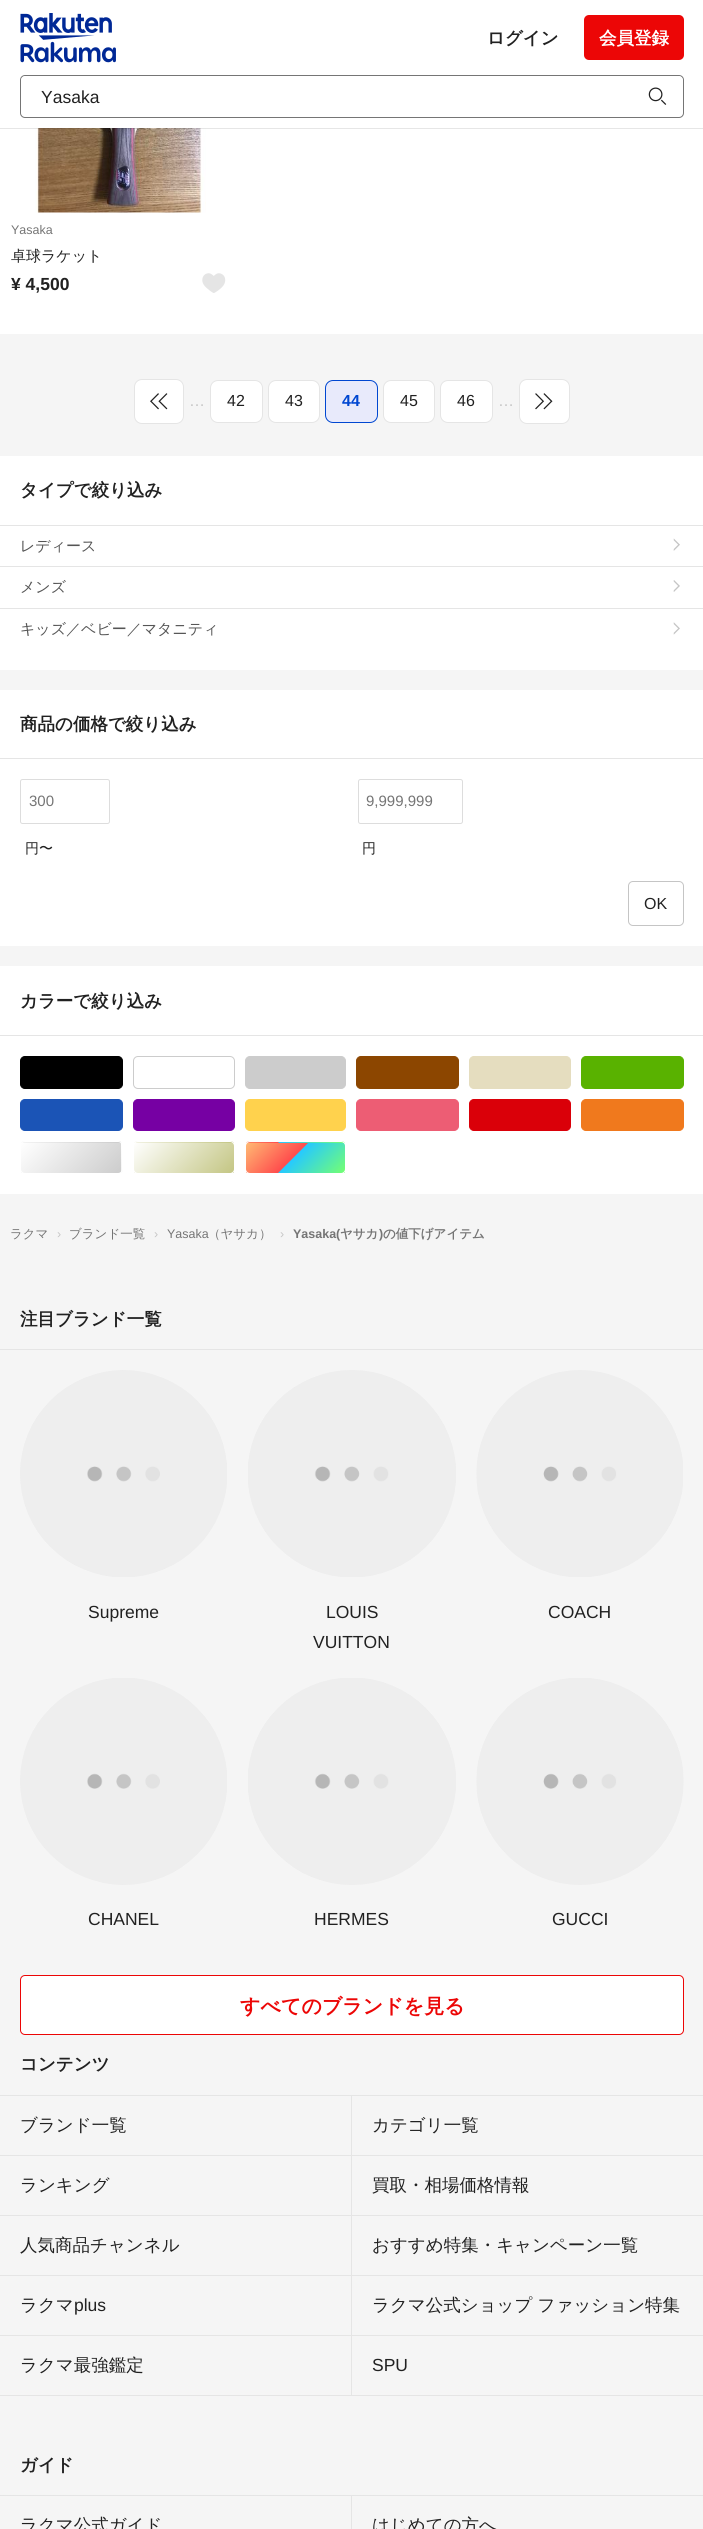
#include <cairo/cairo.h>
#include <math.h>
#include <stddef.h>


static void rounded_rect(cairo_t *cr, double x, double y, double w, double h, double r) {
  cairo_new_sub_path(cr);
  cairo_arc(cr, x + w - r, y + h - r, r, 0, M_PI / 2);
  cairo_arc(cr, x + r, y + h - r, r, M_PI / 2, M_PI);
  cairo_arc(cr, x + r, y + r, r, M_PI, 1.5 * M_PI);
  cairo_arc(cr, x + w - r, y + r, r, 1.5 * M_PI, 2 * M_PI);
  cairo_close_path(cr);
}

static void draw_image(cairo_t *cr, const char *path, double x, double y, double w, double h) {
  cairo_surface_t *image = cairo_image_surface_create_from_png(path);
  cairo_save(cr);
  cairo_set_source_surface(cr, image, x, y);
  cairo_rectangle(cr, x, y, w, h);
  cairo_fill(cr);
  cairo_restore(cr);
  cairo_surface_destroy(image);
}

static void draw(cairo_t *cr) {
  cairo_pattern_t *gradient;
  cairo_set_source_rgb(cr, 245 / 255.0, 245 / 255.0, 245 / 255.0);
  cairo_paint(cr);
  cairo_set_source_rgb(cr, 1, 1, 1);
  cairo_rectangle(cr, 0, 0, 703, 334);
  cairo_fill(cr);
  draw_image(cr, "images/3.png", 35, 128, 171, 85);
  cairo_set_source_rgba(cr, 0, 0, 0, 0.1);
  cairo_new_path(cr);
  cairo_move_to(cr, 0, 128);
  cairo_line_to(cr, 0, 129);
  cairo_line_to(cr, 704, 129);
  cairo_line_to(cr, 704, 1);
  cairo_line_to(cr, 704, 128);
  cairo_close_path(cr);
  cairo_fill(cr);
  draw_image(cr, "images/1.png", 20, 13, 96, 50);
  cairo_set_source_rgb(cr, 236 / 255.0, 6 / 255.0, 6 / 255.0);
  rounded_rect(cr, 584, 15, 100, 45, 5);
  cairo_fill(cr);
  rounded_rect(cr, 20.5, 75.5, 663, 42, 4.5);
  cairo_set_source_rgb(cr, 117 / 255.0, 117 / 255.0, 117 / 255.0);
  cairo_set_line_width(cr, 1);
  cairo_stroke(cr);
  cairo_set_source_rgb(cr, 1, 1, 1);
  rounded_rect(cr, 21, 76, 662, 40, 5);
  cairo_fill(cr);
  draw_image(cr, "images/2.png", 648, 87, 19, 18);
  draw_image(cr, "images/4.png", 202, 273, 24, 20);
  rounded_rect(cr, 134.5, 379.5, 49, 44, 7.5);
  cairo_fill_preserve(cr);
  cairo_set_source_rgb(cr, 229 / 255.0, 229 / 255.0, 229 / 255.0);
  cairo_stroke(cr);
  draw_image(cr, "images/5.png", 150, 393, 18, 17);
  cairo_set_source_rgb(cr, 1, 1, 1);
  rounded_rect(cr, 210.5, 380.5, 52, 42, 7.5);
  cairo_fill_preserve(cr);
  cairo_set_source_rgb(cr, 229 / 255.0, 229 / 255.0, 229 / 255.0);
  cairo_stroke(cr);
  cairo_set_source_rgb(cr, 1, 1, 1);
  rounded_rect(cr, 268.5, 380.5, 51, 42, 7.5);
  cairo_fill_preserve(cr);
  cairo_set_source_rgb(cr, 229 / 255.0, 229 / 255.0, 229 / 255.0);
  cairo_stroke(cr);
  cairo_set_source_rgb(cr, 232 / 255.0, 234 / 255.0, 251 / 255.0);
  rounded_rect(cr, 325.5, 380.5, 52, 42, 7.5);
  cairo_fill_preserve(cr);
  cairo_set_source_rgb(cr, 0, 71 / 255.0, 209 / 255.0);
  cairo_stroke(cr);
  cairo_set_source_rgb(cr, 1, 1, 1);
  rounded_rect(cr, 383.5, 380.5, 51, 42, 7.5);
  cairo_fill_preserve(cr);
  cairo_set_source_rgb(cr, 229 / 255.0, 229 / 255.0, 229 / 255.0);
  cairo_stroke(cr);
  cairo_set_source_rgb(cr, 1, 1, 1);
  rounded_rect(cr, 440.5, 380.5, 52, 42, 7.5);
  cairo_fill_preserve(cr);
  cairo_set_source_rgb(cr, 229 / 255.0, 229 / 255.0, 229 / 255.0);
  cairo_stroke(cr);
  cairo_set_source_rgb(cr, 1, 1, 1);
  rounded_rect(cr, 519.5, 379.5, 50, 44, 7.5);
  cairo_fill_preserve(cr);
  cairo_set_source_rgb(cr, 229 / 255.0, 229 / 255.0, 229 / 255.0);
  cairo_stroke(cr);
  draw_image(cr, "images/6.png", 535, 393, 18, 17);
  cairo_set_source_rgb(cr, 1, 1, 1);
  cairo_rectangle(cr, 0, 456, 703, 214);
  cairo_fill(cr);
  cairo_set_source_rgb(cr, 229 / 255.0, 229 / 255.0, 229 / 255.0);
  cairo_rectangle(cr, 0, 525, 703, 1);
  cairo_fill(cr);
  cairo_rectangle(cr, 0, 566, 703, 1);
  cairo_fill(cr);
  draw_image(cr, "images/7.png", 673, 538, 7, 13);
  cairo_rectangle(cr, 0, 608, 703, 1);
  cairo_fill(cr);
  draw_image(cr, "images/8.png", 673, 580, 7, 12);
  draw_image(cr, "images/9.png", 673, 622, 7, 13);
  cairo_set_source_rgb(cr, 1, 1, 1);
  cairo_rectangle(cr, 0, 690, 703, 256);
  cairo_fill(cr);
  cairo_set_source_rgb(cr, 229 / 255.0, 229 / 255.0, 229 / 255.0);
  cairo_rectangle(cr, 0, 758, 703, 1);
  cairo_fill(cr);
  rounded_rect(cr, 20.5, 779.5, 89, 44, 2);
  cairo_set_source_rgb(cr, 221 / 255.0, 221 / 255.0, 221 / 255.0);
  cairo_stroke(cr);
  rounded_rect(cr, 358.5, 779.5, 104, 44, 2);
  cairo_stroke(cr);
  rounded_rect(cr, 628.5, 881.5, 55, 44, 4.5);
  cairo_set_source_rgb(cr, 197 / 255.0, 197 / 255.0, 197 / 255.0);
  cairo_stroke(cr);
  cairo_set_source_rgb(cr, 1, 1, 1);
  cairo_rectangle(cr, 0, 966, 703, 228);
  cairo_fill(cr);
  cairo_set_source_rgb(cr, 229 / 255.0, 229 / 255.0, 229 / 255.0);
  cairo_rectangle(cr, 0, 1035, 703, 1);
  cairo_fill(cr);
  cairo_set_source_rgb(cr, 0, 0, 0);
  rounded_rect(cr, 20.5, 1056.5, 102, 32, 4.5);
  cairo_fill_preserve(cr);
  cairo_stroke(cr);
  rounded_rect(cr, 133.5, 1056.5, 101, 32, 4.5);
  cairo_set_source_rgb(cr, 204 / 255.0, 204 / 255.0, 204 / 255.0);
  cairo_stroke(cr);
  rounded_rect(cr, 245.5, 1056.5, 100, 32, 4.5);
  cairo_fill_preserve(cr);
  cairo_stroke(cr);
  cairo_set_source_rgb(cr, 140 / 255.0, 70 / 255.0, 0);
  rounded_rect(cr, 356.5, 1056.5, 102, 32, 4.5);
  cairo_fill_preserve(cr);
  cairo_stroke(cr);
  cairo_set_source_rgb(cr, 229 / 255.0, 221 / 255.0, 191 / 255.0);
  rounded_rect(cr, 469.5, 1056.5, 101, 32, 4.5);
  cairo_fill_preserve(cr);
  cairo_stroke(cr);
  cairo_set_source_rgb(cr, 89 / 255.0, 178 / 255.0, 0);
  rounded_rect(cr, 581.5, 1056.5, 102, 32, 4.5);
  cairo_fill_preserve(cr);
  cairo_stroke(cr);
  cairo_set_source_rgb(cr, 27 / 255.0, 84 / 255.0, 182 / 255.0);
  rounded_rect(cr, 20.5, 1099.5, 102, 31, 4.5);
  cairo_fill_preserve(cr);
  cairo_stroke(cr);
  cairo_set_source_rgb(cr, 118 / 255.0, 0, 163 / 255.0);
  rounded_rect(cr, 133.5, 1099.5, 101, 31, 4.5);
  cairo_fill_preserve(cr);
  cairo_stroke(cr);
  cairo_set_source_rgb(cr, 1, 210 / 255.0, 77 / 255.0);
  rounded_rect(cr, 245.5, 1099.5, 100, 31, 4.5);
  cairo_fill_preserve(cr);
  cairo_stroke(cr);
  cairo_set_source_rgb(cr, 237 / 255.0, 93 / 255.0, 116 / 255.0);
  rounded_rect(cr, 356.5, 1099.5, 102, 31, 4.5);
  cairo_fill_preserve(cr);
  cairo_stroke(cr);
  cairo_set_source_rgb(cr, 218 / 255.0, 0, 9 / 255.0);
  rounded_rect(cr, 469.5, 1099.5, 101, 31, 4.5);
  cairo_fill_preserve(cr);
  cairo_stroke(cr);
  cairo_set_source_rgb(cr, 240 / 255.0, 121 / 255.0, 29 / 255.0);
  rounded_rect(cr, 581.5, 1099.5, 102, 31, 4.5);
  cairo_fill_preserve(cr);
  cairo_stroke(cr);
  cairo_save(cr);
  rounded_rect(cr, 20, 1141, 103, 33, 5);
  cairo_clip(cr);
  gradient = cairo_pattern_create_linear(39, 1095, 104, 1160);
  cairo_pattern_add_color_stop_rgba(gradient, 0, 1, 1, 1, 1);
  cairo_pattern_add_color_stop_rgba(gradient, 1, 204 / 255.0, 204 / 255.0, 204 / 255.0, 1);
  cairo_set_source(cr, gradient);
  cairo_pattern_destroy(gradient);
  cairo_rectangle(cr, 21, 1141, 100, 2);
  cairo_fill(cr);
  gradient = cairo_pattern_create_linear(139, 1095, 204, 1160);
  cairo_pattern_add_color_stop_rgba(gradient, 0, 1, 1, 1, 1);
  cairo_pattern_add_color_stop_rgba(gradient, 1, 204 / 255.0, 204 / 255.0, 204 / 255.0, 1);
  cairo_set_source(cr, gradient);
  cairo_pattern_destroy(gradient);
  cairo_rectangle(cr, 121, 1142, 2, 1);
  cairo_fill(cr);
  cairo_restore(cr);
  gradient = cairo_pattern_create_linear(39, 1125, 104, 1190);
  cairo_pattern_add_color_stop_rgba(gradient, 0, 1, 1, 1, 1);
  cairo_pattern_add_color_stop_rgba(gradient, 1, 204 / 255.0, 204 / 255.0, 204 / 255.0, 1);
  cairo_set_source(cr, gradient);
  cairo_pattern_destroy(gradient);
  cairo_rectangle(cr, 21, 1143, 100, 30);
  cairo_fill(cr);
  cairo_save(cr);
  rounded_rect(cr, 20, 1141, 103, 33, 5);
  cairo_clip(cr);
  gradient = cairo_pattern_create_linear(139, 1125, 204, 1190);
  cairo_pattern_add_color_stop_rgba(gradient, 0, 1, 1, 1, 1);
  cairo_pattern_add_color_stop_rgba(gradient, 1, 204 / 255.0, 204 / 255.0, 204 / 255.0, 1);
  cairo_set_source(cr, gradient);
  cairo_pattern_destroy(gradient);
  cairo_rectangle(cr, 121, 1143, 2, 30);
  cairo_fill(cr);
  cairo_restore(cr);
  rounded_rect(cr, 20.5, 1141.5, 102, 32, 4.5);
  cairo_set_source_rgb(cr, 1, 1, 1);
  cairo_stroke(cr);
  cairo_save(cr);
  rounded_rect(cr, 133, 1141, 102, 33, 5);
  cairo_clip(cr);
  gradient = cairo_pattern_create_linear(151, 1095, 216, 1160);
  cairo_pattern_add_color_stop_rgba(gradient, 0, 1, 1, 1, 1);
  cairo_pattern_add_color_stop_rgba(gradient, 1, 196 / 255.0, 198 / 255.0, 132 / 255.0, 1);
  cairo_set_source(cr, gradient);
  cairo_pattern_destroy(gradient);
  cairo_rectangle(cr, 134, 1141, 100, 2);
  cairo_fill(cr);
  cairo_restore(cr);
  gradient = cairo_pattern_create_linear(151, 1125, 216, 1190);
  cairo_pattern_add_color_stop_rgba(gradient, 0, 1, 1, 1, 1);
  cairo_pattern_add_color_stop_rgba(gradient, 1, 196 / 255.0, 198 / 255.0, 132 / 255.0, 1);
  cairo_set_source(cr, gradient);
  cairo_pattern_destroy(gradient);
  cairo_rectangle(cr, 134, 1143, 100, 30);
  cairo_fill(cr);
  rounded_rect(cr, 133.5, 1141.5, 101, 32, 4.5);
  cairo_set_source_rgb(cr, 1, 1, 1);
  cairo_stroke(cr);
  cairo_save(cr);
  rounded_rect(cr, 245, 1141, 101, 33, 5);
  cairo_clip(cr);
  gradient = cairo_pattern_create_linear(263, 1095, 328, 1160);
  cairo_pattern_add_color_stop_rgba(gradient, 0, 1, 185 / 255.0, 115 / 255.0, 1);
  cairo_pattern_add_color_stop_rgba(gradient, 0.01, 1, 185 / 255.0, 115 / 255.0, 1);
  cairo_pattern_add_color_stop_rgba(gradient, 0.48, 1, 77 / 255.0, 77 / 255.0, 1);
  cairo_pattern_add_color_stop_rgba(gradient, 0.49, 38 / 255.0, 201 / 255.0, 1, 1);
  cairo_pattern_add_color_stop_rgba(gradient, 0.99, 115 / 255.0, 1, 115 / 255.0, 1);
  cairo_pattern_add_color_stop_rgba(gradient, 1, 115 / 255.0, 1, 115 / 255.0, 1);
  cairo_set_source(cr, gradient);
  cairo_pattern_destroy(gradient);
  cairo_rectangle(cr, 246, 1141, 99, 2);
  cairo_fill(cr);
  cairo_restore(cr);
  gradient = cairo_pattern_create_linear(263, 1125, 328, 1190);
  cairo_pattern_add_color_stop_rgba(gradient, 0, 1, 185 / 255.0, 115 / 255.0, 1);
  cairo_pattern_add_color_stop_rgba(gradient, 0.01, 1, 185 / 255.0, 115 / 255.0, 1);
  cairo_pattern_add_color_stop_rgba(gradient, 0.48, 1, 77 / 255.0, 77 / 255.0, 1);
  cairo_pattern_add_color_stop_rgba(gradient, 0.49, 38 / 255.0, 201 / 255.0, 1, 1);
  cairo_pattern_add_color_stop_rgba(gradient, 0.99, 115 / 255.0, 1, 115 / 255.0, 1);
  cairo_pattern_add_color_stop_rgba(gradient, 1, 115 / 255.0, 1, 115 / 255.0, 1);
  cairo_set_source(cr, gradient);
  cairo_pattern_destroy(gradient);
  cairo_rectangle(cr, 246, 1143, 99, 30);
  cairo_fill(cr);
  rounded_rect(cr, 245.5, 1141.5, 100, 32, 4.5);
  cairo_set_source_rgb(cr, 1, 1, 1);
  cairo_stroke(cr);
  cairo_set_source_rgb(cr, 229 / 255.0, 229 / 255.0, 229 / 255.0);
  cairo_rectangle(cr, 0, 1349, 703, 1);
  cairo_fill(cr);
  draw_image(cr, "images/10.png", 20, 1370, 207, 207);
  draw_image(cr, "images/11.png", 248, 1370, 208, 207);
  draw_image(cr, "images/12.png", 476, 1370, 207, 207);
  draw_image(cr, "images/13.png", 20, 1678, 207, 207);
  draw_image(cr, "images/14.png", 248, 1678, 208, 207);
  draw_image(cr, "images/15.png", 476, 1678, 208, 207);
  cairo_set_source_rgb(cr, 1, 1, 1);
  rounded_rect(cr, 20.5, 1975.5, 663, 59, 4.5);
  cairo_fill_preserve(cr);
  cairo_set_source_rgb(cr, 236 / 255.0, 6 / 255.0, 6 / 255.0);
  cairo_stroke(cr);
  cairo_set_source_rgb(cr, 229 / 255.0, 229 / 255.0, 229 / 255.0);
  cairo_rectangle(cr, 0, 2095, 703, 1);
  cairo_fill(cr);
  cairo_rectangle(cr, 351, 2096, 1, 300);
  cairo_fill(cr);
  cairo_rectangle(cr, 0, 2155, 703, 1);
  cairo_fill(cr);
  cairo_rectangle(cr, 0, 2215, 703, 1);
  cairo_fill(cr);
  cairo_rectangle(cr, 0, 2275, 703, 1);
  cairo_fill(cr);
  cairo_rectangle(cr, 0, 2335, 703, 1);
  cairo_fill(cr);
  cairo_rectangle(cr, 0, 2395, 703, 1);
  cairo_fill(cr);
  cairo_rectangle(cr, 0, 2495, 703, 1);
  cairo_fill(cr);
  cairo_rectangle(cr, 351, 2496, 1, 33);
  cairo_fill(cr);
  cairo_select_font_face(cr, "WenQuanYi Zen Hei", CAIRO_FONT_SLANT_NORMAL, CAIRO_FONT_WEIGHT_BOLD);
  cairo_set_font_size(cr, 17.5);
  cairo_set_source_rgb(cr, 33 / 255.0, 33 / 255.0, 33 / 255.0);
  cairo_move_to(cr, 487, 44);
  cairo_show_text(cr, "ログイン");
  cairo_set_source_rgb(cr, 1, 1, 1);
  cairo_move_to(cr, 599, 44);
  cairo_show_text(cr, "会員登録");
  cairo_select_font_face(cr, "Liberation Sans", CAIRO_FONT_SLANT_NORMAL, CAIRO_FONT_WEIGHT_NORMAL);
  cairo_set_source_rgb(cr, 33 / 255.0, 33 / 255.0, 33 / 255.0);
  cairo_move_to(cr, 41, 103);
  cairo_show_text(cr, "Yasaka");
  cairo_set_font_size(cr, 12.5);
  cairo_set_source_rgb(cr, 117 / 255.0, 117 / 255.0, 117 / 255.0);
  cairo_move_to(cr, 11, 234);
  cairo_show_text(cr, "Yasaka");
  cairo_select_font_face(cr, "WenQuanYi Zen Hei Medium", CAIRO_FONT_SLANT_NORMAL, CAIRO_FONT_WEIGHT_NORMAL);
  cairo_set_font_size(cr, 15);
  cairo_set_source_rgb(cr, 33 / 255.0, 33 / 255.0, 33 / 255.0);
  cairo_move_to(cr, 11, 261);
  cairo_show_text(cr, "卓球ラケット");
  cairo_select_font_face(cr, "Liberation Sans", CAIRO_FONT_SLANT_NORMAL, CAIRO_FONT_WEIGHT_BOLD);
  cairo_set_font_size(cr, 17.5);
  cairo_move_to(cr, 11, 290);
  cairo_show_text(cr, "¥ 4,500");
  cairo_select_font_face(cr, "Liberation Sans", CAIRO_FONT_SLANT_NORMAL, CAIRO_FONT_WEIGHT_NORMAL);
  cairo_set_font_size(cr, 16);
  cairo_set_source_rgb(cr, 197 / 255.0, 197 / 255.0, 197 / 255.0);
  cairo_move_to(cr, 189, 406);
  cairo_show_text(cr, "…");
  cairo_set_source_rgb(cr, 33 / 255.0, 33 / 255.0, 33 / 255.0);
  cairo_move_to(cr, 227, 406);
  cairo_show_text(cr, "42");
  cairo_move_to(cr, 285, 406);
  cairo_show_text(cr, "43");
  cairo_select_font_face(cr, "Liberation Sans", CAIRO_FONT_SLANT_NORMAL, CAIRO_FONT_WEIGHT_BOLD);
  cairo_set_source_rgb(cr, 0, 71 / 255.0, 209 / 255.0);
  cairo_move_to(cr, 342, 406);
  cairo_show_text(cr, "44");
  cairo_select_font_face(cr, "Liberation Sans", CAIRO_FONT_SLANT_NORMAL, CAIRO_FONT_WEIGHT_NORMAL);
  cairo_set_source_rgb(cr, 33 / 255.0, 33 / 255.0, 33 / 255.0);
  cairo_move_to(cr, 400, 406);
  cairo_show_text(cr, "45");
  cairo_move_to(cr, 457, 406);
  cairo_show_text(cr, "46");
  cairo_set_source_rgb(cr, 197 / 255.0, 197 / 255.0, 197 / 255.0);
  cairo_move_to(cr, 498, 406);
  cairo_show_text(cr, "…");
  cairo_select_font_face(cr, "WenQuanYi Zen Hei", CAIRO_FONT_SLANT_NORMAL, CAIRO_FONT_WEIGHT_BOLD);
  cairo_set_font_size(cr, 17.5);
  cairo_set_source_rgb(cr, 33 / 255.0, 33 / 255.0, 33 / 255.0);
  cairo_move_to(cr, 20, 496);
  cairo_show_text(cr, "タイプで絞り込み");
  cairo_select_font_face(cr, "WenQuanYi Zen Hei Medium", CAIRO_FONT_SLANT_NORMAL, CAIRO_FONT_WEIGHT_NORMAL);
  cairo_set_font_size(cr, 15);
  cairo_set_source_rgb(cr, 85 / 255.0, 85 / 255.0, 85 / 255.0);
  cairo_move_to(cr, 20, 551);
  cairo_show_text(cr, "レディース");
  cairo_move_to(cr, 20, 592);
  cairo_show_text(cr, "メンズ");
  cairo_move_to(cr, 20, 634);
  cairo_show_text(cr, "キッズ／ベビー／マタニティ");
  cairo_select_font_face(cr, "WenQuanYi Zen Hei", CAIRO_FONT_SLANT_NORMAL, CAIRO_FONT_WEIGHT_BOLD);
  cairo_set_font_size(cr, 17.5);
  cairo_set_source_rgb(cr, 33 / 255.0, 33 / 255.0, 33 / 255.0);
  cairo_move_to(cr, 20, 730);
  cairo_show_text(cr, "商品の価格で絞り込み");
  cairo_select_font_face(cr, "Liberation Sans", CAIRO_FONT_SLANT_NORMAL, CAIRO_FONT_WEIGHT_NORMAL);
  cairo_set_font_size(cr, 15);
  cairo_set_source_rgb(cr, 117 / 255.0, 117 / 255.0, 117 / 255.0);
  cairo_move_to(cr, 29, 806);
  cairo_show_text(cr, "300");
  cairo_select_font_face(cr, "WenQuanYi Zen Hei Medium", CAIRO_FONT_SLANT_NORMAL, CAIRO_FONT_WEIGHT_NORMAL);
  cairo_set_font_size(cr, 14);
  cairo_set_source_rgb(cr, 33 / 255.0, 33 / 255.0, 33 / 255.0);
  cairo_move_to(cr, 25, 853);
  cairo_show_text(cr, "円〜");
  cairo_select_font_face(cr, "Liberation Sans", CAIRO_FONT_SLANT_NORMAL, CAIRO_FONT_WEIGHT_NORMAL);
  cairo_set_font_size(cr, 15);
  cairo_set_source_rgb(cr, 117 / 255.0, 117 / 255.0, 117 / 255.0);
  cairo_move_to(cr, 366, 806);
  cairo_show_text(cr, "9,999,999");
  cairo_select_font_face(cr, "WenQuanYi Zen Hei Medium", CAIRO_FONT_SLANT_NORMAL, CAIRO_FONT_WEIGHT_NORMAL);
  cairo_set_font_size(cr, 14);
  cairo_set_source_rgb(cr, 33 / 255.0, 33 / 255.0, 33 / 255.0);
  cairo_move_to(cr, 362, 853);
  cairo_show_text(cr, "円");
  cairo_select_font_face(cr, "Liberation Sans", CAIRO_FONT_SLANT_NORMAL, CAIRO_FONT_WEIGHT_NORMAL);
  cairo_set_font_size(cr, 16);
  cairo_move_to(cr, 644, 909);
  cairo_show_text(cr, "OK");
  cairo_select_font_face(cr, "WenQuanYi Zen Hei", CAIRO_FONT_SLANT_NORMAL, CAIRO_FONT_WEIGHT_BOLD);
  cairo_set_font_size(cr, 17.5);
  cairo_move_to(cr, 20, 1007);
  cairo_show_text(cr, "カラーで絞り込み");
  cairo_select_font_face(cr, "WenQuanYi Zen Hei Medium", CAIRO_FONT_SLANT_NORMAL, CAIRO_FONT_WEIGHT_NORMAL);
  cairo_set_font_size(cr, 12.5);
  cairo_set_source_rgb(cr, 117 / 255.0, 117 / 255.0, 117 / 255.0);
  cairo_move_to(cr, 10, 1238);
  cairo_show_text(cr, "ラクマ");
  cairo_select_font_face(cr, "Liberation Sans", CAIRO_FONT_SLANT_NORMAL, CAIRO_FONT_WEIGHT_NORMAL);
  cairo_set_source_rgb(cr, 197 / 255.0, 197 / 255.0, 197 / 255.0);
  cairo_move_to(cr, 57, 1238);
  cairo_show_text(cr, "›");
  cairo_select_font_face(cr, "WenQuanYi Zen Hei Medium", CAIRO_FONT_SLANT_NORMAL, CAIRO_FONT_WEIGHT_NORMAL);
  cairo_set_source_rgb(cr, 117 / 255.0, 117 / 255.0, 117 / 255.0);
  cairo_move_to(cr, 69, 1238);
  cairo_show_text(cr, "ブランド一覧");
  cairo_select_font_face(cr, "Liberation Sans", CAIRO_FONT_SLANT_NORMAL, CAIRO_FONT_WEIGHT_NORMAL);
  cairo_set_source_rgb(cr, 197 / 255.0, 197 / 255.0, 197 / 255.0);
  cairo_move_to(cr, 154, 1238);
  cairo_show_text(cr, "›");
  cairo_set_source_rgb(cr, 117 / 255.0, 117 / 255.0, 117 / 255.0);
  cairo_move_to(cr, 167, 1238);
  cairo_show_text(cr, "Yasaka");
  cairo_select_font_face(cr, "WenQuanYi Zen Hei Medium", CAIRO_FONT_SLANT_NORMAL, CAIRO_FONT_WEIGHT_NORMAL);
  cairo_move_to(cr, 208, 1238);
  cairo_show_text(cr, "（ヤサカ）");
  cairo_select_font_face(cr, "Liberation Sans", CAIRO_FONT_SLANT_NORMAL, CAIRO_FONT_WEIGHT_NORMAL);
  cairo_set_source_rgb(cr, 197 / 255.0, 197 / 255.0, 197 / 255.0);
  cairo_move_to(cr, 280, 1238);
  cairo_show_text(cr, "›");
  cairo_select_font_face(cr, "Liberation Sans", CAIRO_FONT_SLANT_NORMAL, CAIRO_FONT_WEIGHT_BOLD);
  cairo_set_source_rgb(cr, 117 / 255.0, 117 / 255.0, 117 / 255.0);
  cairo_move_to(cr, 293, 1238);
  cairo_show_text(cr, "Yasaka(");
  cairo_select_font_face(cr, "WenQuanYi Zen Hei", CAIRO_FONT_SLANT_NORMAL, CAIRO_FONT_WEIGHT_BOLD);
  cairo_move_to(cr, 340, 1238);
  cairo_show_text(cr, "ヤサカ");
  cairo_select_font_face(cr, "Liberation Sans", CAIRO_FONT_SLANT_NORMAL, CAIRO_FONT_WEIGHT_BOLD);
  cairo_move_to(cr, 379, 1238);
  cairo_show_text(cr, ")");
  cairo_select_font_face(cr, "WenQuanYi Zen Hei", CAIRO_FONT_SLANT_NORMAL, CAIRO_FONT_WEIGHT_BOLD);
  cairo_move_to(cr, 383, 1238);
  cairo_show_text(cr, "の値下げアイテム");
  cairo_set_font_size(cr, 17.5);
  cairo_set_source_rgb(cr, 33 / 255.0, 33 / 255.0, 33 / 255.0);
  cairo_move_to(cr, 20, 1325);
  cairo_show_text(cr, "注目ブランド一覧");
  cairo_select_font_face(cr, "Liberation Sans", CAIRO_FONT_SLANT_NORMAL, CAIRO_FONT_WEIGHT_NORMAL);
  cairo_move_to(cr, 88, 1618);
  cairo_show_text(cr, "Supreme");
  cairo_move_to(cr, 326, 1618);
  cairo_show_text(cr, "LOUIS");
  cairo_move_to(cr, 313, 1648);
  cairo_show_text(cr, "VUITTON");
  cairo_move_to(cr, 548, 1618);
  cairo_show_text(cr, "COACH");
  cairo_move_to(cr, 88, 1925);
  cairo_show_text(cr, "CHANEL");
  cairo_move_to(cr, 314, 1925);
  cairo_show_text(cr, "HERMES");
  cairo_move_to(cr, 552, 1925);
  cairo_show_text(cr, "GUCCI");
  cairo_select_font_face(cr, "WenQuanYi Zen Hei", CAIRO_FONT_SLANT_NORMAL, CAIRO_FONT_WEIGHT_BOLD);
  cairo_set_font_size(cr, 20);
  cairo_set_source_rgb(cr, 236 / 255.0, 6 / 255.0, 6 / 255.0);
  cairo_move_to(cr, 240, 2013);
  cairo_show_text(cr, "すべてのブランドを見る");
  cairo_set_font_size(cr, 17.5);
  cairo_set_source_rgb(cr, 33 / 255.0, 33 / 255.0, 33 / 255.0);
  cairo_move_to(cr, 20, 2070);
  cairo_show_text(cr, "コンテンツ");
  cairo_select_font_face(cr, "WenQuanYi Zen Hei Medium", CAIRO_FONT_SLANT_NORMAL, CAIRO_FONT_WEIGHT_NORMAL);
  cairo_move_to(cr, 20, 2131);
  cairo_show_text(cr, "ブランド一覧");
  cairo_move_to(cr, 372, 2131);
  cairo_show_text(cr, "カテゴリ一覧");
  cairo_move_to(cr, 20, 2191);
  cairo_show_text(cr, "ランキング");
  cairo_move_to(cr, 372, 2191);
  cairo_show_text(cr, "買取・相場価格情報");
  cairo_move_to(cr, 20, 2251);
  cairo_show_text(cr, "人気商品チャンネル");
  cairo_move_to(cr, 372, 2251);
  cairo_show_text(cr, "おすすめ特集・キャンペーン一覧");
  cairo_move_to(cr, 20, 2311);
  cairo_show_text(cr, "ラクマ");
  cairo_select_font_face(cr, "Liberation Sans", CAIRO_FONT_SLANT_NORMAL, CAIRO_FONT_WEIGHT_NORMAL);
  cairo_move_to(cr, 74, 2311);
  cairo_show_text(cr, "plus");
  cairo_select_font_face(cr, "WenQuanYi Zen Hei Medium", CAIRO_FONT_SLANT_NORMAL, CAIRO_FONT_WEIGHT_NORMAL);
  cairo_move_to(cr, 372, 2311);
  cairo_show_text(cr, "ラクマ公式ショップ ファッション特集");
  cairo_move_to(cr, 20, 2371);
  cairo_show_text(cr, "ラクマ最強鑑定");
  cairo_select_font_face(cr, "Liberation Sans", CAIRO_FONT_SLANT_NORMAL, CAIRO_FONT_WEIGHT_NORMAL);
  cairo_move_to(cr, 372, 2371);
  cairo_show_text(cr, "SPU");
  cairo_select_font_face(cr, "WenQuanYi Zen Hei", CAIRO_FONT_SLANT_NORMAL, CAIRO_FONT_WEIGHT_BOLD);
  cairo_move_to(cr, 20, 2471);
  cairo_show_text(cr, "ガイド");
  cairo_select_font_face(cr, "WenQuanYi Zen Hei Medium", CAIRO_FONT_SLANT_NORMAL, CAIRO_FONT_WEIGHT_NORMAL);
  cairo_move_to(cr, 20, 2531);
  cairo_show_text(cr, "ラクマ公式ガイド");
  cairo_move_to(cr, 372, 2531);
  cairo_show_text(cr, "はじめての方へ");
}

int main(void) {
  cairo_surface_t *surface = cairo_image_surface_create(CAIRO_FORMAT_RGB24, 703, 2529);
  cairo_t *cr = cairo_create(surface);
  cairo_font_options_t *options = cairo_font_options_create();
  cairo_font_options_set_hint_metrics(options, CAIRO_HINT_METRICS_OFF);
  cairo_font_options_set_hint_style(options, CAIRO_HINT_STYLE_NONE);
  cairo_set_font_options(cr, options);
  cairo_set_miter_limit(cr, 4);
  draw(cr);
  cairo_surface_write_to_png(surface, "out.png");
  cairo_font_options_destroy(options);
  cairo_destroy(cr);
  cairo_surface_destroy(surface);
  return 0;
}
